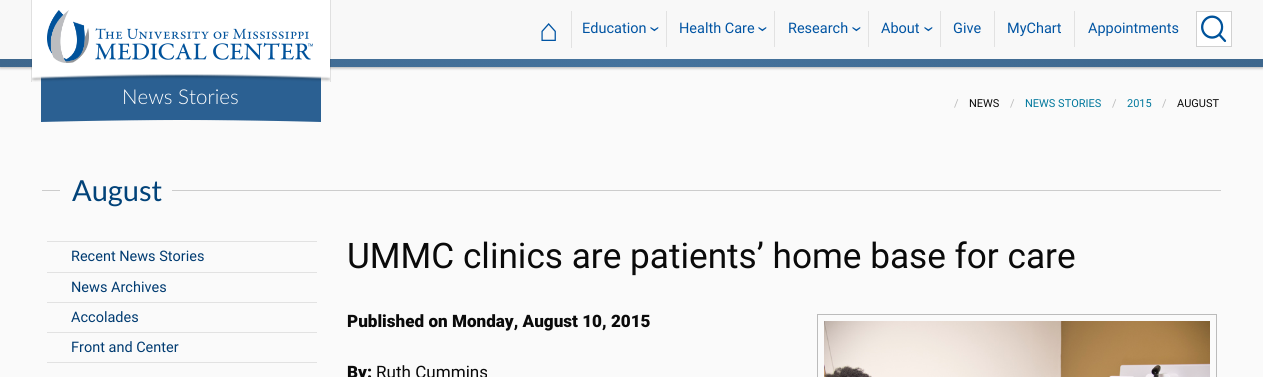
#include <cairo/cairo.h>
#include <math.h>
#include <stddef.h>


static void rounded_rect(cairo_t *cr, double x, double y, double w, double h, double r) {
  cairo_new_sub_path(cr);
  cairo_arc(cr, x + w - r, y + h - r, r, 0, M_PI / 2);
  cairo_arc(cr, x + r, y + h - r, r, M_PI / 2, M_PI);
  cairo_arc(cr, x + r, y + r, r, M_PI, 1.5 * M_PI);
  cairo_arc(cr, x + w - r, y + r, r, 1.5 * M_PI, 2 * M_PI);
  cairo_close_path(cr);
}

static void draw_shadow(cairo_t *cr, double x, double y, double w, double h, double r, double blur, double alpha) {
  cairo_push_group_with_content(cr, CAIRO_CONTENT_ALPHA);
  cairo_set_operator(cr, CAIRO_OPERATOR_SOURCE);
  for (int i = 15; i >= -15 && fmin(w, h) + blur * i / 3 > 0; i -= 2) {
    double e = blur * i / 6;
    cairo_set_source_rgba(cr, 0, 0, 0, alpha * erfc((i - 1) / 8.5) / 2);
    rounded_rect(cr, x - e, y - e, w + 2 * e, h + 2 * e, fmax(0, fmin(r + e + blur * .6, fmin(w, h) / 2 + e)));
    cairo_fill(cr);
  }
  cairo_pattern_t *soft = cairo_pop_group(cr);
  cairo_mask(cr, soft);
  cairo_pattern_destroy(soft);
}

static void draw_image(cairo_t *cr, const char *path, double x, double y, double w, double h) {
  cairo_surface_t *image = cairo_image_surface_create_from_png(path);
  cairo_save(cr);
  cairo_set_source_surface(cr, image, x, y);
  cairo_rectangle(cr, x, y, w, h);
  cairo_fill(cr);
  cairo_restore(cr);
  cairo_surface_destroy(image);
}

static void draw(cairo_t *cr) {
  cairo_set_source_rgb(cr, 250 / 255.0, 250 / 255.0, 250 / 255.0);
  cairo_paint(cr);
  cairo_set_source_rgb(cr, 0, 0, 0);
  draw_shadow(cr, 0, 1, 1263, 67, 0, 1.5, 0.3);
  cairo_set_source_rgb(cr, 248 / 255.0, 248 / 255.0, 248 / 255.0);
  cairo_rectangle(cr, 0, 0, 1263, 59);
  cairo_fill(cr);
  draw_image(cr, "images/1.png", 0, 59, 1263, 8);
  draw_image(cr, "images/6.png", 41, 74, 280, 48);
  draw_image(cr, "images/2.png", 32, 0, 298, 82);
  cairo_set_source_rgba(cr, 0, 0, 0, 0.1);
  cairo_rectangle(cr, 330, 0, 1, 82);
  cairo_fill(cr);
  cairo_rectangle(cr, 31, 0, 1, 82);
  cairo_fill(cr);
  draw_image(cr, "images/3.png", 47, 10, 42, 53);
  draw_image(cr, "images/4.png", 95, 28, 218, 32);
  cairo_set_source_rgb(cr, 226 / 255.0, 226 / 255.0, 226 / 255.0);
  cairo_rectangle(cr, 571, 11, 1, 37);
  cairo_fill(cr);
  cairo_rectangle(cr, 666, 11, 1, 36);
  cairo_fill(cr);
  cairo_rectangle(cr, 774, 11, 1, 36);
  cairo_fill(cr);
  cairo_rectangle(cr, 868, 11, 1, 36);
  cairo_fill(cr);
  cairo_rectangle(cr, 940, 11, 1, 36);
  cairo_fill(cr);
  cairo_rectangle(cr, 994, 11, 1, 36);
  cairo_fill(cr);
  cairo_rectangle(cr, 1074, 11, 1, 36);
  cairo_fill(cr);
  cairo_set_source_rgb(cr, 1, 1, 1);
  cairo_rectangle(cr, 1197, 12, 34, 34);
  cairo_fill(cr);
  draw_image(cr, "images/5.png", 1201, 15, 26, 27);
  cairo_rectangle(cr, 1196.5, 11.5, 35, 35);
  cairo_set_source_rgb(cr, 209 / 255.0, 209 / 255.0, 209 / 255.0);
  cairo_set_line_width(cr, 1);
  cairo_stroke(cr);
  cairo_set_source_rgb(cr, 204 / 255.0, 204 / 255.0, 204 / 255.0);
  cairo_rectangle(cr, 42, 190, 18, 1);
  cairo_fill(cr);
  cairo_rectangle(cr, 172, 190, 1049, 1);
  cairo_fill(cr);
  cairo_set_source_rgb(cr, 226 / 255.0, 226 / 255.0, 226 / 255.0);
  cairo_rectangle(cr, 47, 241, 270, 1);
  cairo_fill(cr);
  cairo_rectangle(cr, 47, 272, 270, 1);
  cairo_fill(cr);
  cairo_rectangle(cr, 47, 302, 270, 1);
  cairo_fill(cr);
  cairo_rectangle(cr, 47, 332, 270, 1);
  cairo_fill(cr);
  cairo_rectangle(cr, 47, 362, 270, 1);
  cairo_fill(cr);
  cairo_rectangle(cr, 817.5, 314.5, 399, 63);
  cairo_set_source_rgb(cr, 187 / 255.0, 187 / 255.0, 187 / 255.0);
  cairo_stroke(cr);
  draw_image(cr, "images/7.png", 824, 321, 386, 56);
  cairo_select_font_face(cr, "Liberation Sans", CAIRO_FONT_SLANT_NORMAL, CAIRO_FONT_WEIGHT_BOLD);
  cairo_set_font_size(cr, 32);
  cairo_set_source_rgb(cr, 0, 84 / 255.0, 163 / 255.0);
  cairo_move_to(cr, 539, 41);
  cairo_show_text(cr, "⌂");
  cairo_select_font_face(cr, "Roboto", CAIRO_FONT_SLANT_NORMAL, CAIRO_FONT_WEIGHT_NORMAL);
  cairo_set_font_size(cr, 14.5);
  cairo_move_to(cr, 582, 33);
  cairo_show_text(cr, "Education");
  cairo_set_font_size(cr, 20);
  cairo_save(cr);
  cairo_translate(cr, 649, 26);
  cairo_rotate(cr, 90 * M_PI / 180);
  cairo_move_to(cr, 0, 0);
  cairo_show_text(cr, "›");
  cairo_restore(cr);
  cairo_set_font_size(cr, 14.5);
  cairo_move_to(cr, 679, 33);
  cairo_show_text(cr, "Health Care");
  cairo_set_font_size(cr, 20);
  cairo_save(cr);
  cairo_translate(cr, 757, 26);
  cairo_rotate(cr, 90 * M_PI / 180);
  cairo_move_to(cr, 0, 0);
  cairo_show_text(cr, "›");
  cairo_restore(cr);
  cairo_set_font_size(cr, 14.5);
  cairo_move_to(cr, 788, 33);
  cairo_show_text(cr, "Research");
  cairo_set_font_size(cr, 20);
  cairo_save(cr);
  cairo_translate(cr, 851, 26);
  cairo_rotate(cr, 90 * M_PI / 180);
  cairo_move_to(cr, 0, 0);
  cairo_show_text(cr, "›");
  cairo_restore(cr);
  cairo_set_font_size(cr, 14.5);
  cairo_move_to(cr, 881, 33);
  cairo_show_text(cr, "About");
  cairo_set_font_size(cr, 20);
  cairo_save(cr);
  cairo_translate(cr, 923, 26);
  cairo_rotate(cr, 90 * M_PI / 180);
  cairo_move_to(cr, 0, 0);
  cairo_show_text(cr, "›");
  cairo_restore(cr);
  cairo_set_font_size(cr, 14.5);
  cairo_move_to(cr, 953, 33);
  cairo_show_text(cr, "Give");
  cairo_move_to(cr, 1007, 33);
  cairo_show_text(cr, "MyChart");
  cairo_move_to(cr, 1088, 33);
  cairo_show_text(cr, "Appointments");
  cairo_select_font_face(cr, "Lato Light", CAIRO_FONT_SLANT_NORMAL, CAIRO_FONT_WEIGHT_NORMAL);
  cairo_set_font_size(cr, 20.5);
  cairo_set_source_rgb(cr, 1, 1, 1);
  cairo_move_to(cr, 122, 104);
  cairo_show_text(cr, "News Stories");
  cairo_select_font_face(cr, "Roboto", CAIRO_FONT_SLANT_NORMAL, CAIRO_FONT_WEIGHT_NORMAL);
  cairo_set_font_size(cr, 11);
  cairo_set_source_rgb(cr, 187 / 255.0, 187 / 255.0, 187 / 255.0);
  cairo_move_to(cr, 954, 107);
  cairo_show_text(cr, "/");
  cairo_set_source_rgb(cr, 10 / 255.0, 10 / 255.0, 10 / 255.0);
  cairo_move_to(cr, 969, 107);
  cairo_show_text(cr, "NEWS");
  cairo_set_source_rgb(cr, 187 / 255.0, 187 / 255.0, 187 / 255.0);
  cairo_move_to(cr, 1010, 107);
  cairo_show_text(cr, "/");
  cairo_set_source_rgb(cr, 0, 119 / 255.0, 156 / 255.0);
  cairo_move_to(cr, 1025, 107);
  cairo_show_text(cr, "NEWS STORIES");
  cairo_set_source_rgb(cr, 187 / 255.0, 187 / 255.0, 187 / 255.0);
  cairo_move_to(cr, 1112, 107);
  cairo_show_text(cr, "/");
  cairo_set_source_rgb(cr, 0, 119 / 255.0, 156 / 255.0);
  cairo_move_to(cr, 1127, 107);
  cairo_show_text(cr, "2015");
  cairo_set_source_rgb(cr, 187 / 255.0, 187 / 255.0, 187 / 255.0);
  cairo_move_to(cr, 1162, 107);
  cairo_show_text(cr, "/");
  cairo_set_source_rgb(cr, 10 / 255.0, 10 / 255.0, 10 / 255.0);
  cairo_move_to(cr, 1177, 107);
  cairo_show_text(cr, "AUGUST");
  cairo_select_font_face(cr, "Lato", CAIRO_FONT_SLANT_NORMAL, CAIRO_FONT_WEIGHT_NORMAL);
  cairo_set_font_size(cr, 29);
  cairo_set_source_rgb(cr, 2 / 255.0, 67 / 255.0, 121 / 255.0);
  cairo_move_to(cr, 72, 201);
  cairo_show_text(cr, "August");
  cairo_select_font_face(cr, "Roboto", CAIRO_FONT_SLANT_NORMAL, CAIRO_FONT_WEIGHT_NORMAL);
  cairo_set_font_size(cr, 14.5);
  cairo_set_source_rgb(cr, 0, 59 / 255.0, 113 / 255.0);
  cairo_move_to(cr, 71, 261);
  cairo_show_text(cr, "Recent News Stories");
  cairo_move_to(cr, 71, 292);
  cairo_show_text(cr, "News Archives");
  cairo_move_to(cr, 71, 322);
  cairo_show_text(cr, "Accolades");
  cairo_move_to(cr, 71, 352);
  cairo_show_text(cr, "Front and Center");
  cairo_set_font_size(cr, 35.2);
  cairo_set_source_rgb(cr, 10 / 255.0, 10 / 255.0, 10 / 255.0);
  cairo_move_to(cr, 347, 268);
  cairo_show_text(cr, "UMMC clinics are patients’ home base for care");
  cairo_select_font_face(cr, "Roboto Black", CAIRO_FONT_SLANT_NORMAL, CAIRO_FONT_WEIGHT_NORMAL);
  cairo_set_font_size(cr, 17.1);
  cairo_move_to(cr, 347, 327);
  cairo_show_text(cr, "Published on Monday, August 10, 2015");
  cairo_move_to(cr, 347, 378);
  cairo_show_text(cr, "By:");
  cairo_select_font_face(cr, "Roboto", CAIRO_FONT_SLANT_NORMAL, CAIRO_FONT_WEIGHT_NORMAL);
  cairo_move_to(cr, 376, 378);
  cairo_show_text(cr, "Ruth Cummins");
}

int main(void) {
  cairo_surface_t *surface = cairo_image_surface_create(CAIRO_FORMAT_RGB24, 1263, 377);
  cairo_t *cr = cairo_create(surface);
  cairo_font_options_t *options = cairo_font_options_create();
  cairo_font_options_set_hint_metrics(options, CAIRO_HINT_METRICS_OFF);
  cairo_font_options_set_hint_style(options, CAIRO_HINT_STYLE_NONE);
  cairo_set_font_options(cr, options);
  cairo_set_miter_limit(cr, 4);
  draw(cr);
  cairo_surface_write_to_png(surface, "out.png");
  cairo_font_options_destroy(options);
  cairo_destroy(cr);
  cairo_surface_destroy(surface);
  return 0;
}
